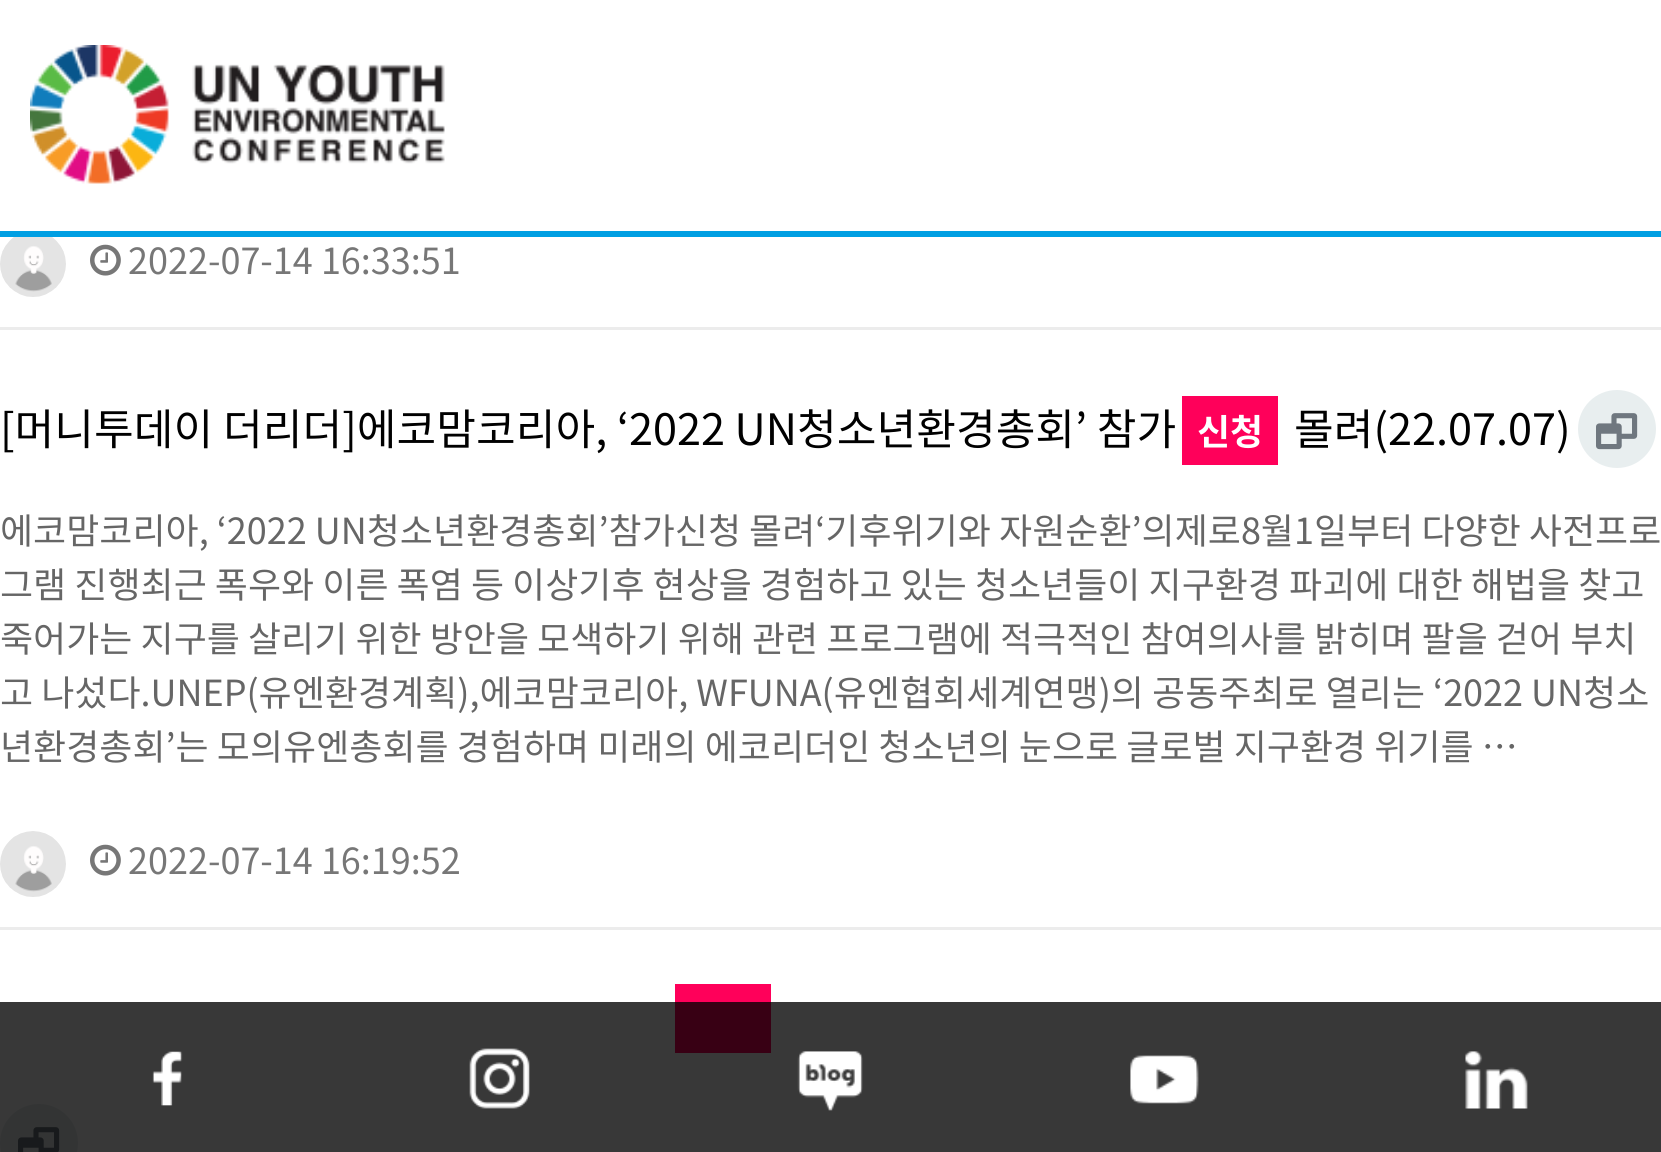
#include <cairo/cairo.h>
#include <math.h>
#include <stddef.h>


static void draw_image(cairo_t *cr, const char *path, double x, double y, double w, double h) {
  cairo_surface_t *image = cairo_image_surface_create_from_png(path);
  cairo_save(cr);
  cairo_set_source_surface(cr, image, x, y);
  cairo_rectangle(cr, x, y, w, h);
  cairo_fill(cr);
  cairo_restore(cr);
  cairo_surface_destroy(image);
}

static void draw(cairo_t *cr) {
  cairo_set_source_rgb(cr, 1, 1, 1);
  cairo_paint(cr);
  cairo_set_source_rgb(cr, 0, 159 / 255.0, 227 / 255.0);
  cairo_rectangle(cr, 0, 231, 1661, 6);
  cairo_fill(cr);
  draw_image(cr, "images/1.png", 30, 45, 415, 139);
  cairo_set_source_rgb(cr, 236 / 255.0, 236 / 255.0, 236 / 255.0);
  cairo_rectangle(cr, 0, 327, 1661, 3);
  cairo_fill(cr);
  draw_image(cr, "images/2.png", 0, 237, 66, 60);
  draw_image(cr, "images/3.png", 90, 244, 31, 32);
  cairo_rectangle(cr, 0, 927, 1661, 3);
  cairo_fill(cr);
  cairo_set_source_rgb(cr, 1, 0, 90 / 255.0);
  cairo_rectangle(cr, 1182, 396, 96, 69);
  cairo_fill(cr);
  cairo_set_source_rgb(cr, 232 / 255.0, 238 / 255.0, 239 / 255.0);
  cairo_arc(cr, 1617, 429, 39, 0, 2 * M_PI);
  cairo_fill(cr);
  draw_image(cr, "images/4.png", 1596, 413, 42, 37);
  draw_image(cr, "images/5.png", 0, 831, 66, 66);
  draw_image(cr, "images/3.png", 90, 844, 31, 32);
  cairo_set_source_rgb(cr, 1, 0, 90 / 255.0);
  cairo_rectangle(cr, 675, 984, 96, 69);
  cairo_fill(cr);
  cairo_set_source_rgb(cr, 232 / 255.0, 238 / 255.0, 239 / 255.0);
  cairo_arc(cr, 39, 1143, 39, 0, 2 * M_PI);
  cairo_fill(cr);
  draw_image(cr, "images/6.png", 18, 1127, 42, 25);
  cairo_set_source_rgba(cr, 0, 0, 0, 0.78);
  cairo_rectangle(cr, 0, 1002, 333, 150);
  cairo_fill(cr);
  draw_image(cr, "images/7.png", 152, 1051, 31, 55);
  cairo_rectangle(cr, 333, 1002, 333, 150);
  cairo_fill(cr);
  draw_image(cr, "images/8.png", 469, 1048, 61, 61);
  cairo_rectangle(cr, 666, 1002, 330, 150);
  cairo_fill(cr);
  draw_image(cr, "images/9.png", 797, 1051, 66, 60);
  cairo_rectangle(cr, 996, 1002, 333, 150);
  cairo_fill(cr);
  draw_image(cr, "images/10.png", 1130, 1055, 69, 49);
  cairo_rectangle(cr, 1329, 1002, 332, 150);
  cairo_fill(cr);
  draw_image(cr, "images/11.png", 1465, 1051, 63, 58);
  cairo_select_font_face(cr, "Noto Sans CJK KR", CAIRO_FONT_SLANT_NORMAL, CAIRO_FONT_WEIGHT_NORMAL);
  cairo_set_font_size(cr, 36);
  cairo_set_source_rgb(cr, 119 / 255.0, 119 / 255.0, 119 / 255.0);
  cairo_move_to(cr, 128, 274);
  cairo_show_text(cr, "2022-07-14 16:33:51");
  cairo_set_font_size(cr, 43.2);
  cairo_set_source_rgb(cr, 0, 0, 0);
  cairo_move_to(cr, 0, 445);
  cairo_show_text(cr, "[머니투데이 더리더]에코맘코리아, ‘2022 UN청소년환경총회’ 참가");
  cairo_select_font_face(cr, "Noto Sans CJK KR", CAIRO_FONT_SLANT_NORMAL, CAIRO_FONT_WEIGHT_BOLD);
  cairo_set_font_size(cr, 36);
  cairo_set_source_rgb(cr, 1, 1, 1);
  cairo_move_to(cr, 1197, 445);
  cairo_show_text(cr, "신청");
  cairo_select_font_face(cr, "Noto Sans CJK KR", CAIRO_FONT_SLANT_NORMAL, CAIRO_FONT_WEIGHT_NORMAL);
  cairo_set_font_size(cr, 43.2);
  cairo_set_source_rgb(cr, 0, 0, 0);
  cairo_move_to(cr, 1294, 445);
  cairo_show_text(cr, "몰려(22.07.07)");
  cairo_set_font_size(cr, 36);
  cairo_set_source_rgb(cr, 102 / 255.0, 102 / 255.0, 102 / 255.0);
  cairo_move_to(cr, 0, 544);
  cairo_show_text(cr, "에코맘코리아, ‘2022 UN청소년환경총회’참가신청 몰려‘기후위기와 자원순환’의제로8월1일부터 다양한 사전프로");
  cairo_move_to(cr, 0, 598);
  cairo_show_text(cr, "그램 진행최근 폭우와 이른 폭염 등 이상기후 현상을 경험하고 있는 청소년들이 지구환경 파괴에 대한 해법을 찾고");
  cairo_move_to(cr, 0, 652);
  cairo_show_text(cr, "죽어가는 지구를 살리기 위한 방안을 모색하기 위해 관련 프로그램에 적극적인 참여의사를 밝히며 팔을 걷어 부치");
  cairo_move_to(cr, 0, 706);
  cairo_show_text(cr, "고 나섰다.UNEP(유엔환경계획),에코맘코리아, WFUNA(유엔협회세계연맹)의 공동주최로 열리는 ‘2022 UN청소");
  cairo_move_to(cr, 0, 760);
  cairo_show_text(cr, "년환경총회’는 모의유엔총회를 경험하며 미래의 에코리더인 청소년의 눈으로 글로벌 지구환경 위기를 …");
  cairo_set_source_rgb(cr, 119 / 255.0, 119 / 255.0, 119 / 255.0);
  cairo_move_to(cr, 128, 874);
  cairo_show_text(cr, "2022-07-14 16:19:52");
}

int main(void) {
  cairo_surface_t *surface = cairo_image_surface_create(CAIRO_FORMAT_RGB24, 1661, 1152);
  cairo_t *cr = cairo_create(surface);
  cairo_font_options_t *options = cairo_font_options_create();
  cairo_font_options_set_hint_metrics(options, CAIRO_HINT_METRICS_OFF);
  cairo_font_options_set_hint_style(options, CAIRO_HINT_STYLE_NONE);
  cairo_set_font_options(cr, options);
  cairo_set_miter_limit(cr, 4);
  draw(cr);
  cairo_surface_write_to_png(surface, "out.png");
  cairo_font_options_destroy(options);
  cairo_destroy(cr);
  cairo_surface_destroy(surface);
  return 0;
}
